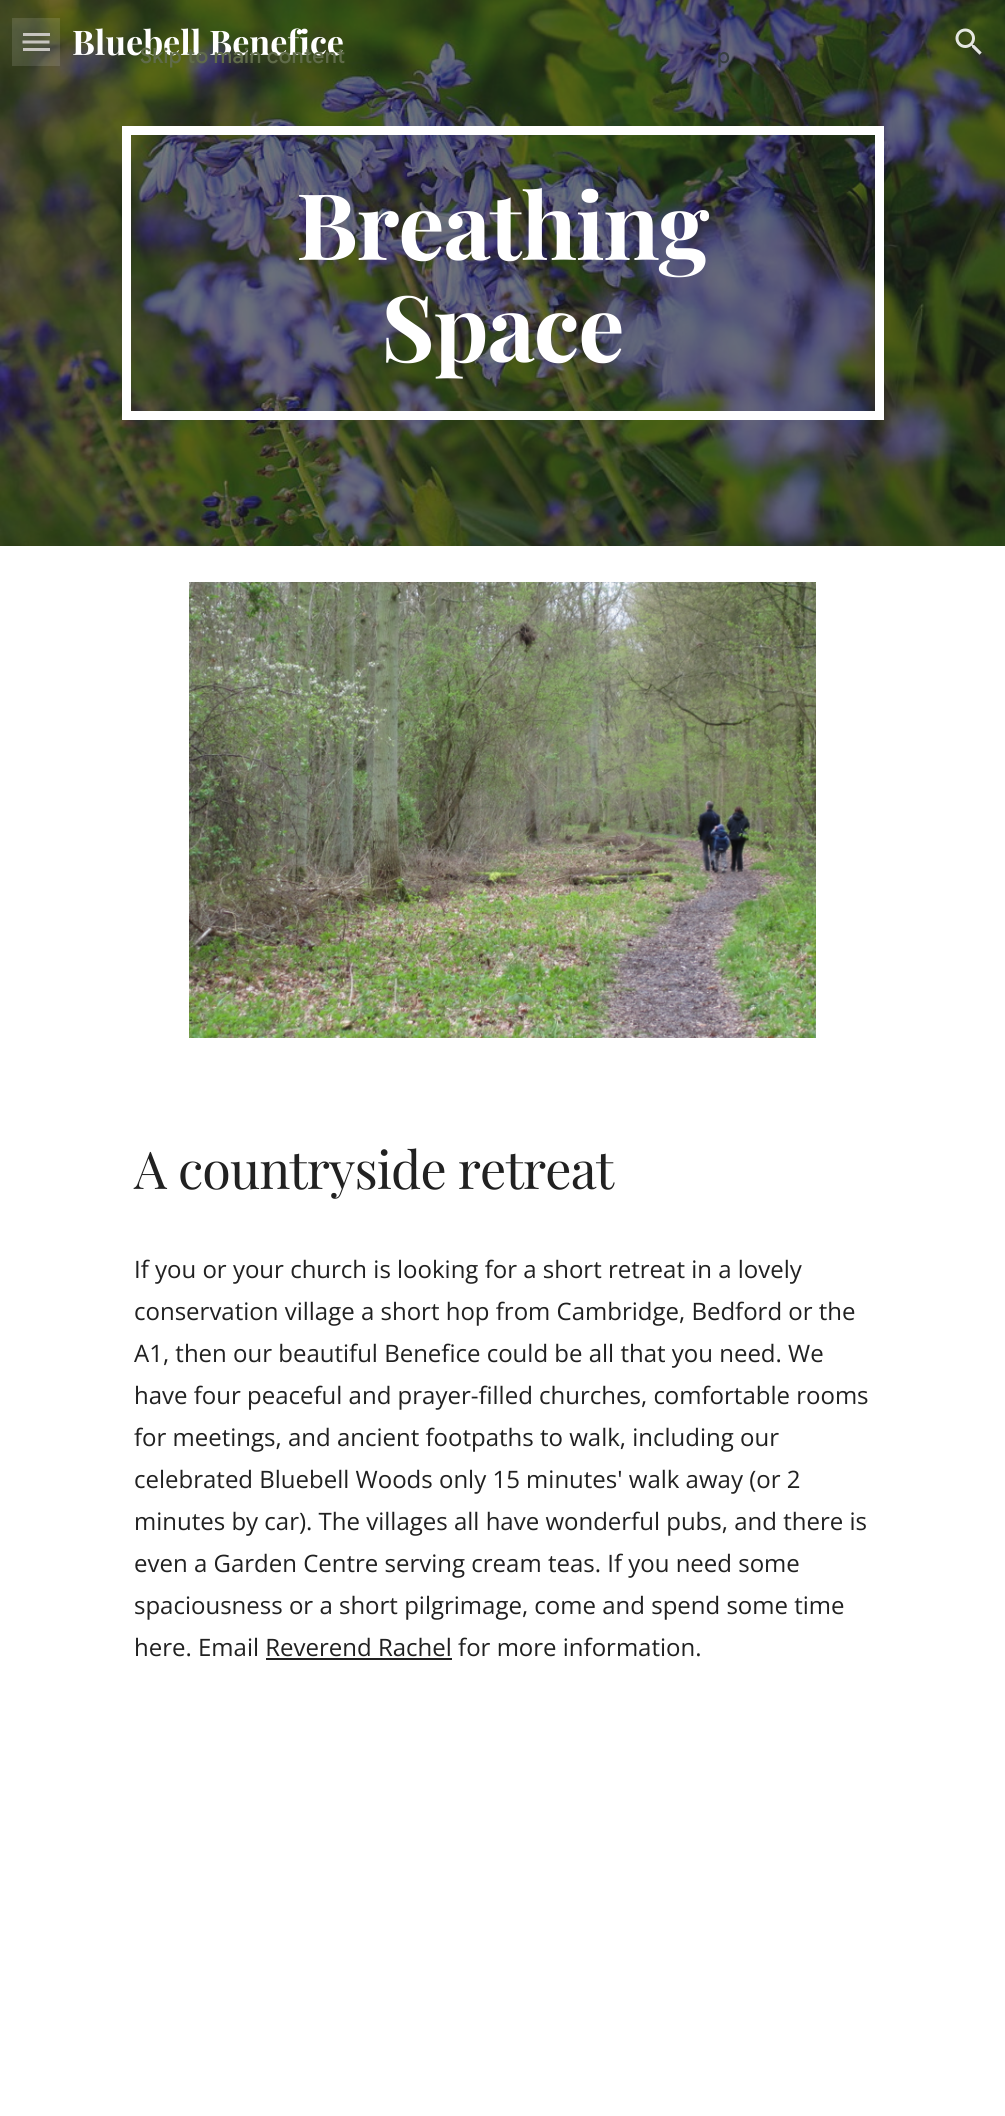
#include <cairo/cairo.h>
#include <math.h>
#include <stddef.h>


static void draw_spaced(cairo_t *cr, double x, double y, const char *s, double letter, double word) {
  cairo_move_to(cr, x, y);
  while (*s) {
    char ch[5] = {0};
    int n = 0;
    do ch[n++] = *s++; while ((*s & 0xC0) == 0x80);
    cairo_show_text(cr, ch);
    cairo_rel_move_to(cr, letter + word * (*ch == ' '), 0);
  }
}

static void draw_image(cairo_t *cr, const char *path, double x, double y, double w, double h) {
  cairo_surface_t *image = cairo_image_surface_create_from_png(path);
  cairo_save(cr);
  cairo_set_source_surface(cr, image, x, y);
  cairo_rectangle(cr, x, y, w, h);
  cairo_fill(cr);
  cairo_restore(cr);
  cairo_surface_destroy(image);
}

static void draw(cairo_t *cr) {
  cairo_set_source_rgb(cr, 1, 1, 1);
  cairo_paint(cr);
  draw_image(cr, "images/2.png", 0, 0, 1005, 546);
  cairo_set_source_rgb(cr, 192 / 255.0, 189 / 255.0, 184 / 255.0);
  cairo_rectangle(cr, 23, 33, 27, 3);
  cairo_fill(cr);
  cairo_new_path(cr);
  cairo_move_to(cr, 22.5, 42);
  cairo_line_to(cr, 49.5, 42);
  cairo_set_line_width(cr, 3);
  cairo_stroke(cr);
  cairo_rectangle(cr, 23, 48, 27, 3);
  cairo_fill(cr);
  cairo_set_source_rgba(cr, 1, 1, 1, 0.12);
  cairo_rectangle(cr, 12, 18, 48, 48);
  cairo_fill(cr);
  draw_image(cr, "images/1.png", 955, 28, 27, 27);
  cairo_rectangle(cr, 126.5, 130.5, 753, 285);
  cairo_set_source_rgb(cr, 1, 1, 1);
  cairo_set_line_width(cr, 9);
  cairo_stroke(cr);
  draw_image(cr, "images/3.png", 189, 582, 627, 456);
  cairo_set_source_rgb(cr, 33 / 255.0, 33 / 255.0, 33 / 255.0);
  cairo_rectangle(cr, 266, 1658, 186, 2);
  cairo_fill(cr);
  cairo_select_font_face(cr, "Playfair Display", CAIRO_FONT_SLANT_NORMAL, CAIRO_FONT_WEIGHT_BOLD);
  cairo_set_font_size(cr, 34);
  cairo_set_source_rgb(cr, 1, 1, 1);
  cairo_move_to(cr, 72, 55);
  cairo_show_text(cr, "Bluebell Benefice");
  cairo_set_font_size(cr, 92);
  draw_spaced(cr, 296, 260, "Breathing", -1.25, 0);
  draw_spaced(cr, 381, 362, "Space", -1.25, 0);
  cairo_select_font_face(cr, "Playfair Display", CAIRO_FONT_SLANT_NORMAL, CAIRO_FONT_WEIGHT_NORMAL);
  cairo_set_font_size(cr, 52);
  cairo_set_source_rgb(cr, 33 / 255.0, 33 / 255.0, 33 / 255.0);
  draw_spaced(cr, 134, 1189, "A countryside retreat", -0.9, 0);
  cairo_select_font_face(cr, "Open Sans", CAIRO_FONT_SLANT_NORMAL, CAIRO_FONT_WEIGHT_NORMAL);
  cairo_set_font_size(cr, 24);
  cairo_move_to(cr, 134, 1278);
  cairo_show_text(cr, "If you or your church is looking for a short retreat in a lovely");
  cairo_move_to(cr, 134, 1320);
  cairo_show_text(cr, "conservation village a short hop from Cambridge, Bedford or the");
  cairo_move_to(cr, 134, 1362);
  cairo_show_text(cr, "A1, then our beautiful Benefice could be all that you need. We");
  cairo_move_to(cr, 134, 1404);
  cairo_show_text(cr, "have four peaceful and prayer-filled churches, comfortable rooms");
  cairo_move_to(cr, 134, 1446);
  cairo_show_text(cr, "for meetings, and ancient footpaths to walk, including our");
  cairo_move_to(cr, 134, 1488);
  cairo_show_text(cr, "celebrated Bluebell Woods only 15 minutes' walk away (or 2");
  cairo_move_to(cr, 134, 1530);
  cairo_show_text(cr, "minutes by car). The villages all have wonderful pubs, and there is");
  cairo_move_to(cr, 134, 1572);
  cairo_show_text(cr, "even a Garden Centre serving cream teas. If you need some");
  cairo_move_to(cr, 134, 1614);
  cairo_show_text(cr, "spaciousness or a short pilgrimage, come and spend some time");
  cairo_move_to(cr, 134, 1656);
  cairo_show_text(cr, "here. Email Reverend Rachel for more information.");
  cairo_select_font_face(cr, "Google Sans Medium", CAIRO_FONT_SLANT_NORMAL, CAIRO_FONT_WEIGHT_NORMAL);
  cairo_set_font_size(cr, 21);
  cairo_set_source_rgb(cr, 96 / 255.0, 107 / 255.0, 74 / 255.0);
  draw_spaced(cr, 140, 63, "Skip to main content", 0.25, 0);
  cairo_set_source_rgb(cr, 55 / 255.0, 62 / 255.0, 65 / 255.0);
  draw_spaced(cr, 717, 63, "p", 0.25, 0);
}

int main(void) {
  cairo_surface_t *surface = cairo_image_surface_create(CAIRO_FORMAT_RGB24, 1005, 2116);
  cairo_t *cr = cairo_create(surface);
  cairo_font_options_t *options = cairo_font_options_create();
  cairo_font_options_set_hint_metrics(options, CAIRO_HINT_METRICS_OFF);
  cairo_font_options_set_hint_style(options, CAIRO_HINT_STYLE_NONE);
  cairo_set_font_options(cr, options);
  cairo_set_miter_limit(cr, 4);
  draw(cr);
  cairo_surface_write_to_png(surface, "out.png");
  cairo_font_options_destroy(options);
  cairo_destroy(cr);
  cairo_surface_destroy(surface);
  return 0;
}
